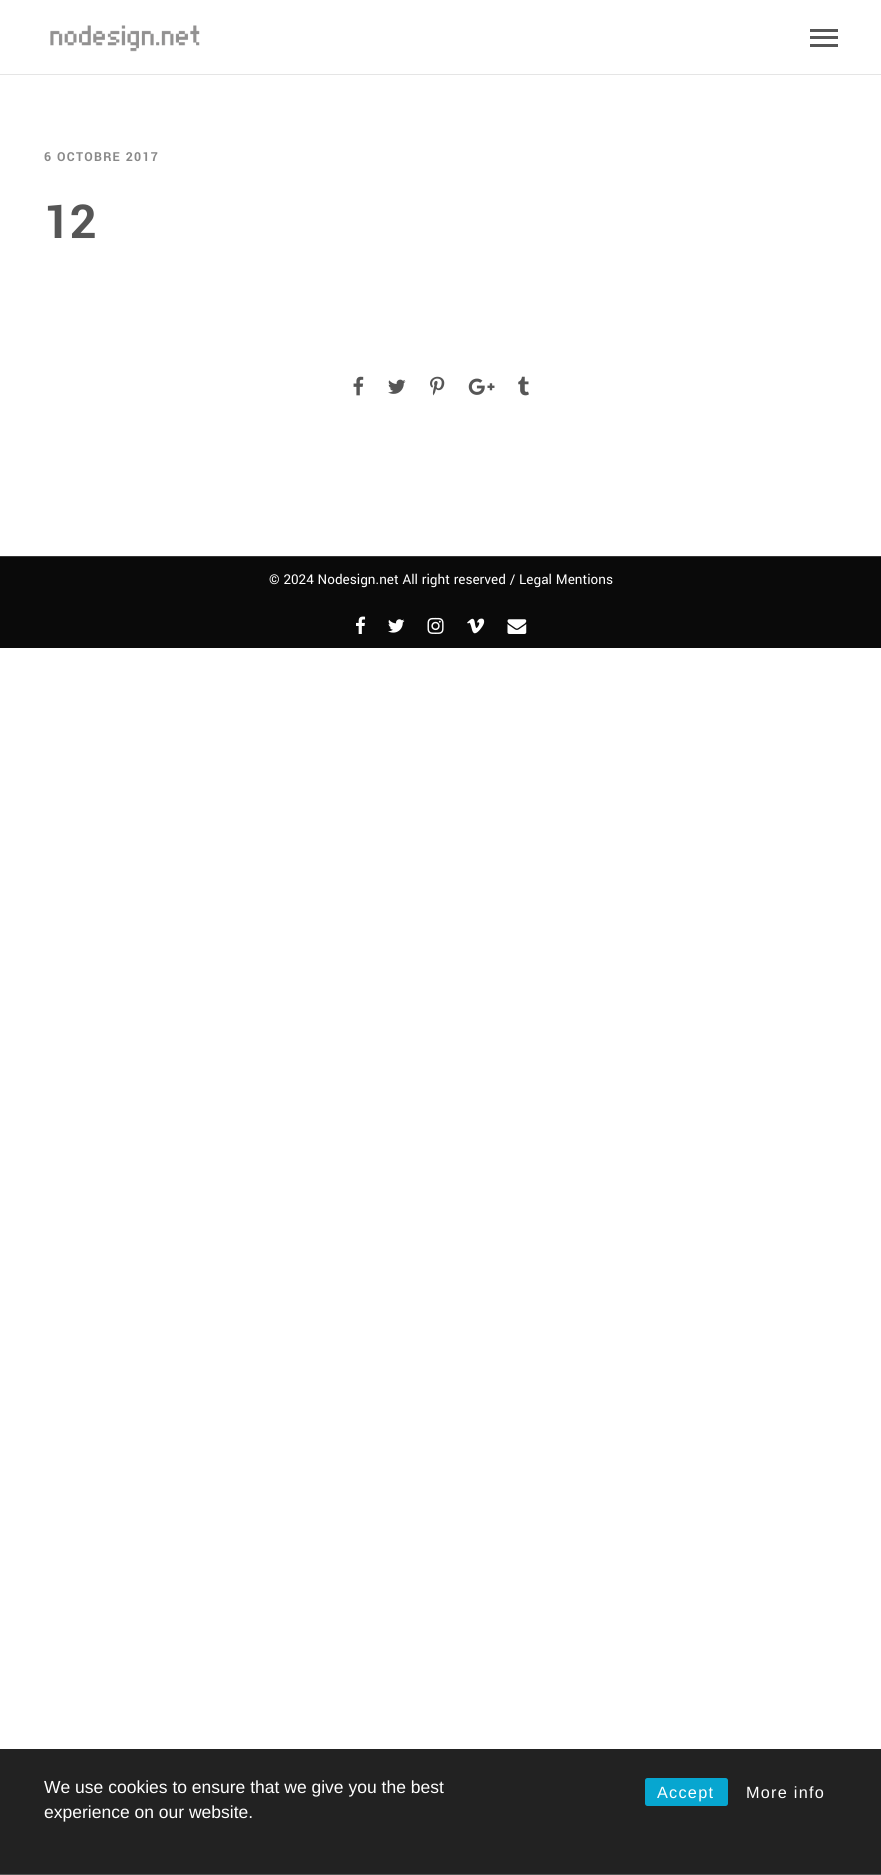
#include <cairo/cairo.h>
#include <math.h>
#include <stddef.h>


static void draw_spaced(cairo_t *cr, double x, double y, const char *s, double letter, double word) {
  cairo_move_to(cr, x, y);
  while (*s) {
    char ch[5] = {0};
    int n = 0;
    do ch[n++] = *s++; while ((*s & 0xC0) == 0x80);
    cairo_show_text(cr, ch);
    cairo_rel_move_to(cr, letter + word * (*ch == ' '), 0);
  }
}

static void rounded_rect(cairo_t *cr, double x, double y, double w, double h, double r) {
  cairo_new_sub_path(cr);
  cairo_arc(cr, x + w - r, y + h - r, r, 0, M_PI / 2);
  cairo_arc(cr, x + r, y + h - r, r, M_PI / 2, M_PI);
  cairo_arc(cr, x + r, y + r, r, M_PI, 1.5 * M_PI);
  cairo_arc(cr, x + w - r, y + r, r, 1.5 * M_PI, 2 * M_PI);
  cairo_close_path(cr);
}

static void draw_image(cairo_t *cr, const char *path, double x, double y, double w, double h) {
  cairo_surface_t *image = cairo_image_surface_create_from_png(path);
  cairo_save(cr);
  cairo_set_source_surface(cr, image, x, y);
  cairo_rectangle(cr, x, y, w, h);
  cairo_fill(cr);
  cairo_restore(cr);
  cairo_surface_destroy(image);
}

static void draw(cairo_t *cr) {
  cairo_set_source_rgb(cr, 1, 1, 1);
  cairo_paint(cr);
  cairo_set_source_rgb(cr, 229 / 255.0, 229 / 255.0, 229 / 255.0);
  cairo_rectangle(cr, 0, 74, 881, 1);
  cairo_fill(cr);
  draw_image(cr, "images/1.png", 50, 25, 150, 27);
  cairo_set_source_rgb(cr, 86 / 255.0, 86 / 255.0, 86 / 255.0);
  cairo_rectangle(cr, 810, 36, 28, 3);
  cairo_fill(cr);
  cairo_rectangle(cr, 810, 29, 28, 3);
  cairo_fill(cr);
  cairo_rectangle(cr, 810, 44, 28, 3);
  cairo_fill(cr);
  draw_image(cr, "images/2.png", 353, 376, 11, 20);
  draw_image(cr, "images/3.png", 388, 379, 18, 15);
  draw_image(cr, "images/4.png", 430, 376, 15, 20);
  draw_image(cr, "images/5.png", 468, 378, 27, 17);
  draw_image(cr, "images/6.png", 518, 376, 11, 20);
  cairo_set_source_rgb(cr, 10 / 255.0, 10 / 255.0, 10 / 255.0);
  cairo_rectangle(cr, 0, 557, 881, 91);
  cairo_fill(cr);
  cairo_set_source_rgb(cr, 54 / 255.0, 54 / 255.0, 54 / 255.0);
  cairo_rectangle(cr, 0, 556, 881, 1);
  cairo_fill(cr);
  draw_image(cr, "images/7.png", 356, 616, 10, 18);
  draw_image(cr, "images/8.png", 388, 619, 17, 14);
  draw_image(cr, "images/9.png", 427, 617, 17, 17);
  draw_image(cr, "images/10.png", 467, 618, 18, 16);
  draw_image(cr, "images/11.png", 507, 619, 20, 15);
  cairo_set_source_rgb(cr, 34 / 255.0, 34 / 255.0, 34 / 255.0);
  cairo_rectangle(cr, 0, 1749, 881, 125);
  cairo_fill(cr);
  cairo_set_source_rgb(cr, 85 / 255.0, 85 / 255.0, 85 / 255.0);
  cairo_rectangle(cr, 0, 1874, 881, 1);
  cairo_fill(cr);
  cairo_set_source_rgb(cr, 7 / 255.0, 166 / 255.0, 208 / 255.0);
  rounded_rect(cr, 645, 1778, 83, 28, 2.5);
  cairo_fill(cr);
  cairo_select_font_face(cr, "Yantramanav", CAIRO_FONT_SLANT_NORMAL, CAIRO_FONT_WEIGHT_BOLD);
  cairo_set_font_size(cr, 13.75);
  cairo_set_source_rgb(cr, 137 / 255.0, 137 / 255.0, 137 / 255.0);
  draw_spaced(cr, 44, 161, "6 OCTOBRE 2017", 1.25, 0);
  cairo_set_font_size(cr, 52);
  cairo_set_source_rgb(cr, 86 / 255.0, 86 / 255.0, 86 / 255.0);
  draw_spaced(cr, 44, 238, "12", -1, 0);
  cairo_select_font_face(cr, "Yantramanav", CAIRO_FONT_SLANT_NORMAL, CAIRO_FONT_WEIGHT_NORMAL);
  cairo_set_font_size(cr, 15);
  cairo_set_source_rgb(cr, 1, 1, 1);
  cairo_move_to(cr, 269, 584);
  cairo_show_text(cr, "© 2024 Nodesign.net All right reserved / Legal Mentions");
  cairo_select_font_face(cr, "Liberation Sans", CAIRO_FONT_SLANT_NORMAL, CAIRO_FONT_WEIGHT_NORMAL);
  cairo_set_font_size(cr, 17.5);
  cairo_move_to(cr, 44, 1793);
  cairo_show_text(cr, "We use cookies to ensure that we give you the best");
  cairo_move_to(cr, 44, 1818);
  cairo_show_text(cr, "experience on our website.");
  cairo_set_font_size(cr, 16.25);
  draw_spaced(cr, 657, 1798, "Accept", 1.25, 0);
  draw_spaced(cr, 746, 1798, "More info", 1.25, 0);
}

int main(void) {
  cairo_surface_t *surface = cairo_image_surface_create(CAIRO_FORMAT_RGB24, 881, 1875);
  cairo_t *cr = cairo_create(surface);
  cairo_font_options_t *options = cairo_font_options_create();
  cairo_font_options_set_hint_metrics(options, CAIRO_HINT_METRICS_OFF);
  cairo_font_options_set_hint_style(options, CAIRO_HINT_STYLE_NONE);
  cairo_set_font_options(cr, options);
  cairo_set_miter_limit(cr, 4);
  draw(cr);
  cairo_surface_write_to_png(surface, "out.png");
  cairo_font_options_destroy(options);
  cairo_destroy(cr);
  cairo_surface_destroy(surface);
  return 0;
}
